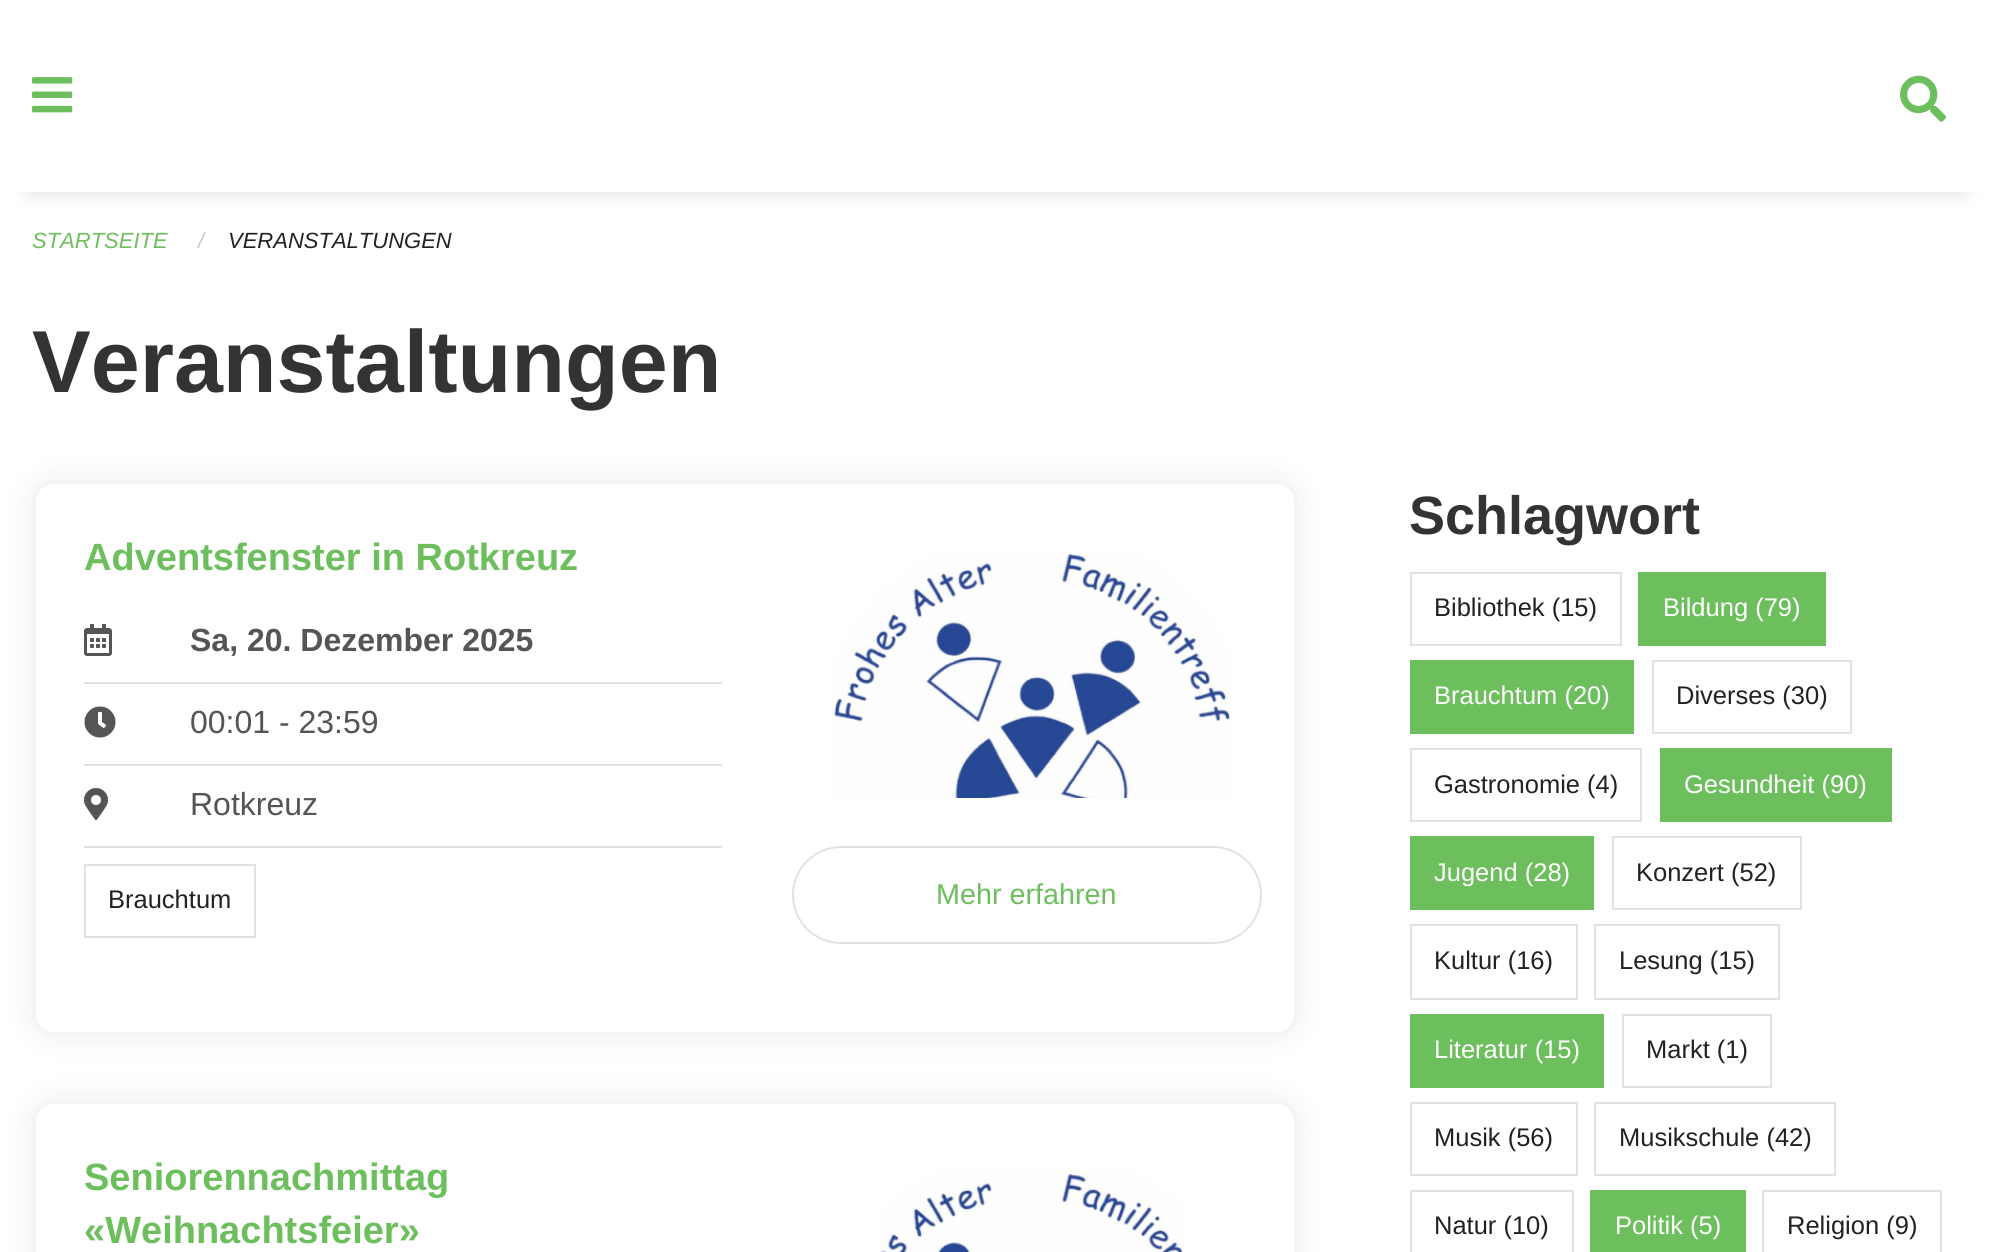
#include <cairo/cairo.h>
#include <math.h>
#include <stddef.h>


static void rounded_rect(cairo_t *cr, double x, double y, double w, double h, double r) {
  cairo_new_sub_path(cr);
  cairo_arc(cr, x + w - r, y + h - r, r, 0, M_PI / 2);
  cairo_arc(cr, x + r, y + h - r, r, M_PI / 2, M_PI);
  cairo_arc(cr, x + r, y + r, r, M_PI, 1.5 * M_PI);
  cairo_arc(cr, x + w - r, y + r, r, 1.5 * M_PI, 2 * M_PI);
  cairo_close_path(cr);
}

static void draw_shadow(cairo_t *cr, double x, double y, double w, double h, double r, double blur, double alpha) {
  cairo_push_group_with_content(cr, CAIRO_CONTENT_ALPHA);
  cairo_set_operator(cr, CAIRO_OPERATOR_SOURCE);
  for (int i = 15; i >= -15 && fmin(w, h) + blur * i / 3 > 0; i -= 2) {
    double e = blur * i / 6;
    cairo_set_source_rgba(cr, 0, 0, 0, alpha * erfc((i - 1) / 8.5) / 2);
    rounded_rect(cr, x - e, y - e, w + 2 * e, h + 2 * e, fmax(0, fmin(r + e + blur * .6, fmin(w, h) / 2 + e)));
    cairo_fill(cr);
  }
  cairo_pattern_t *soft = cairo_pop_group(cr);
  cairo_mask(cr, soft);
  cairo_pattern_destroy(soft);
}

static void draw_image(cairo_t *cr, const char *path, double x, double y, double w, double h) {
  cairo_surface_t *image = cairo_image_surface_create_from_png(path);
  cairo_save(cr);
  cairo_set_source_surface(cr, image, x, y);
  cairo_rectangle(cr, x, y, w, h);
  cairo_fill(cr);
  cairo_restore(cr);
  cairo_surface_destroy(image);
}

static void draw(cairo_t *cr) {
  cairo_set_source_rgb(cr, 1, 1, 1);
  cairo_paint(cr);
  cairo_set_source_rgb(cr, 0, 0, 0);
  draw_shadow(cr, 30, 60, 1934, 132, 0, 10, 0.15);
  cairo_set_source_rgb(cr, 1, 1, 1);
  cairo_rectangle(cr, 15, 45, 1964, 147);
  cairo_fill(cr);
  draw_image(cr, "images/1.png", 32, 77, 41, 36);
  draw_image(cr, "images/2.png", 1900, 75, 46, 47);
  cairo_set_source_rgb(cr, 0, 0, 0);
  draw_shadow(cr, 32, 480, 1266, 556, 22, 17, 0.07);
  cairo_set_source_rgb(cr, 1, 1, 1);
  rounded_rect(cr, 34, 482, 1262, 552, 20);
  cairo_fill_preserve(cr);
  cairo_set_source_rgb(cr, 245 / 255.0, 245 / 255.0, 245 / 255.0);
  cairo_set_line_width(cr, 4);
  cairo_stroke(cr);
  draw_image(cr, "images/3.png", 84, 624, 28, 32);
  cairo_set_source_rgb(cr, 224 / 255.0, 227 / 255.0, 229 / 255.0);
  cairo_rectangle(cr, 84, 682, 638, 2);
  cairo_fill(cr);
  draw_image(cr, "images/4.png", 84, 706, 32, 32);
  cairo_rectangle(cr, 84, 764, 638, 2);
  cairo_fill(cr);
  draw_image(cr, "images/5.png", 84, 788, 24, 32);
  cairo_rectangle(cr, 84, 846, 638, 2);
  cairo_fill(cr);
  cairo_rectangle(cr, 85, 865, 170, 72);
  cairo_set_line_width(cr, 2);
  cairo_stroke(cr);
  draw_image(cr, "images/6.png", 831, 550, 400, 248);
  rounded_rect(cr, 793, 847, 468, 96, 48);
  cairo_stroke(cr);
  cairo_set_source_rgb(cr, 0, 0, 0);
  draw_shadow(cr, 32, 1100, 1266, 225, 22, 17, 0.07);
  cairo_set_source_rgb(cr, 1, 1, 1);
  rounded_rect(cr, 34, 1102, 1262, 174, 20);
  cairo_fill_preserve(cr);
  cairo_set_source_rgb(cr, 245 / 255.0, 245 / 255.0, 245 / 255.0);
  cairo_set_line_width(cr, 4);
  cairo_stroke(cr);
  draw_image(cr, "images/7.png", 879, 1170, 304, 82);
  cairo_rectangle(cr, 1411, 573, 210, 72);
  cairo_set_source_rgb(cr, 224 / 255.0, 227 / 255.0, 229 / 255.0);
  cairo_set_line_width(cr, 2);
  cairo_stroke(cr);
  cairo_set_source_rgb(cr, 109 / 255.0, 191 / 255.0, 93 / 255.0);
  cairo_rectangle(cr, 1638, 572, 188, 74);
  cairo_fill(cr);
  cairo_rectangle(cr, 1410, 660, 224, 74);
  cairo_fill(cr);
  cairo_rectangle(cr, 1653, 661, 198, 72);
  cairo_set_source_rgb(cr, 224 / 255.0, 227 / 255.0, 229 / 255.0);
  cairo_stroke(cr);
  cairo_rectangle(cr, 1411, 749, 230, 72);
  cairo_stroke(cr);
  cairo_set_source_rgb(cr, 109 / 255.0, 191 / 255.0, 93 / 255.0);
  cairo_rectangle(cr, 1660, 748, 232, 74);
  cairo_fill(cr);
  cairo_rectangle(cr, 1410, 836, 184, 74);
  cairo_fill(cr);
  cairo_rectangle(cr, 1613, 837, 188, 72);
  cairo_set_source_rgb(cr, 224 / 255.0, 227 / 255.0, 229 / 255.0);
  cairo_stroke(cr);
  cairo_rectangle(cr, 1411, 925, 166, 74);
  cairo_stroke(cr);
  cairo_rectangle(cr, 1595, 925, 184, 74);
  cairo_stroke(cr);
  cairo_set_source_rgb(cr, 109 / 255.0, 191 / 255.0, 93 / 255.0);
  cairo_rectangle(cr, 1410, 1014, 194, 74);
  cairo_fill(cr);
  cairo_rectangle(cr, 1623, 1015, 148, 72);
  cairo_set_source_rgb(cr, 224 / 255.0, 227 / 255.0, 229 / 255.0);
  cairo_stroke(cr);
  cairo_rectangle(cr, 1411, 1103, 166, 72);
  cairo_stroke(cr);
  cairo_rectangle(cr, 1595, 1103, 240, 72);
  cairo_stroke(cr);
  cairo_rectangle(cr, 1411, 1191, 162, 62);
  cairo_stroke(cr);
  cairo_set_source_rgb(cr, 109 / 255.0, 191 / 255.0, 93 / 255.0);
  cairo_rectangle(cr, 1590, 1190, 156, 62);
  cairo_fill(cr);
  cairo_rectangle(cr, 1763, 1191, 178, 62);
  cairo_set_source_rgb(cr, 224 / 255.0, 227 / 255.0, 229 / 255.0);
  cairo_stroke(cr);
  cairo_select_font_face(cr, "Liberation Sans", CAIRO_FONT_SLANT_ITALIC, CAIRO_FONT_WEIGHT_NORMAL);
  cairo_set_font_size(cr, 22);
  cairo_set_source_rgb(cr, 109 / 255.0, 191 / 255.0, 93 / 255.0);
  cairo_move_to(cr, 32, 248);
  cairo_show_text(cr, "STARTSEITE");
  cairo_set_source_rgb(cr, 202 / 255.0, 202 / 255.0, 202 / 255.0);
  cairo_move_to(cr, 198, 248);
  cairo_show_text(cr, "/");
  cairo_set_source_rgb(cr, 34 / 255.0, 34 / 255.0, 34 / 255.0);
  cairo_move_to(cr, 228, 248);
  cairo_show_text(cr, "VERANSTALTUNGEN");
  cairo_select_font_face(cr, "Liberation Sans", CAIRO_FONT_SLANT_NORMAL, CAIRO_FONT_WEIGHT_BOLD);
  cairo_set_font_size(cr, 88);
  cairo_set_source_rgb(cr, 51 / 255.0, 51 / 255.0, 51 / 255.0);
  cairo_move_to(cr, 32, 392);
  cairo_show_text(cr, "Veranstaltungen");
  cairo_set_font_size(cr, 38);
  cairo_set_source_rgb(cr, 109 / 255.0, 191 / 255.0, 93 / 255.0);
  cairo_move_to(cr, 84, 570);
  cairo_show_text(cr, "Adventsfenster in Rotkreuz");
  cairo_set_font_size(cr, 32);
  cairo_set_source_rgb(cr, 85 / 255.0, 85 / 255.0, 85 / 255.0);
  cairo_move_to(cr, 190, 651);
  cairo_show_text(cr, "Sa, 20. Dezember 2025");
  cairo_select_font_face(cr, "Liberation Sans", CAIRO_FONT_SLANT_NORMAL, CAIRO_FONT_WEIGHT_NORMAL);
  cairo_move_to(cr, 190, 733);
  cairo_show_text(cr, "00:01 - 23:59");
  cairo_move_to(cr, 190, 815);
  cairo_show_text(cr, "Rotkreuz");
  cairo_set_font_size(cr, 25.5);
  cairo_set_source_rgb(cr, 34 / 255.0, 34 / 255.0, 34 / 255.0);
  cairo_move_to(cr, 108, 908);
  cairo_show_text(cr, "Brauchtum");
  cairo_set_font_size(cr, 28.75);
  cairo_set_source_rgb(cr, 109 / 255.0, 191 / 255.0, 93 / 255.0);
  cairo_move_to(cr, 936, 904);
  cairo_show_text(cr, "Mehr erfahren");
  cairo_select_font_face(cr, "Liberation Sans", CAIRO_FONT_SLANT_NORMAL, CAIRO_FONT_WEIGHT_BOLD);
  cairo_set_font_size(cr, 38);
  cairo_move_to(cr, 84, 1190);
  cairo_show_text(cr, "Seniorennachmittag");
  cairo_move_to(cr, 84, 1243);
  cairo_show_text(cr, "«Weihnachtsfeier»");
  cairo_set_font_size(cr, 54);
  cairo_set_source_rgb(cr, 51 / 255.0, 51 / 255.0, 51 / 255.0);
  cairo_move_to(cr, 1409, 534);
  cairo_show_text(cr, "Schlagwort");
  cairo_select_font_face(cr, "Liberation Sans", CAIRO_FONT_SLANT_NORMAL, CAIRO_FONT_WEIGHT_NORMAL);
  cairo_set_font_size(cr, 25.5);
  cairo_set_source_rgb(cr, 34 / 255.0, 34 / 255.0, 34 / 255.0);
  cairo_move_to(cr, 1434, 616);
  cairo_show_text(cr, "Bibliothek (15)");
  cairo_set_source_rgb(cr, 1, 1, 1);
  cairo_move_to(cr, 1663, 616);
  cairo_show_text(cr, "Bildung (79)");
  cairo_move_to(cr, 1434, 704);
  cairo_show_text(cr, "Brauchtum (20)");
  cairo_set_source_rgb(cr, 34 / 255.0, 34 / 255.0, 34 / 255.0);
  cairo_move_to(cr, 1676, 704);
  cairo_show_text(cr, "Diverses (30)");
  cairo_move_to(cr, 1434, 793);
  cairo_show_text(cr, "Gastronomie (4)");
  cairo_set_source_rgb(cr, 1, 1, 1);
  cairo_move_to(cr, 1684, 793);
  cairo_show_text(cr, "Gesundheit (90)");
  cairo_move_to(cr, 1434, 881);
  cairo_show_text(cr, "Jugend (28)");
  cairo_set_source_rgb(cr, 34 / 255.0, 34 / 255.0, 34 / 255.0);
  cairo_move_to(cr, 1636, 881);
  cairo_show_text(cr, "Konzert (52)");
  cairo_move_to(cr, 1434, 969);
  cairo_show_text(cr, "Kultur (16)");
  cairo_move_to(cr, 1619, 969);
  cairo_show_text(cr, "Lesung (15)");
  cairo_set_source_rgb(cr, 1, 1, 1);
  cairo_move_to(cr, 1434, 1058);
  cairo_show_text(cr, "Literatur (15)");
  cairo_set_source_rgb(cr, 34 / 255.0, 34 / 255.0, 34 / 255.0);
  cairo_move_to(cr, 1646, 1058);
  cairo_show_text(cr, "Markt (1)");
  cairo_move_to(cr, 1434, 1146);
  cairo_show_text(cr, "Musik (56)");
  cairo_move_to(cr, 1619, 1146);
  cairo_show_text(cr, "Musikschule (42)");
  cairo_move_to(cr, 1434, 1234);
  cairo_show_text(cr, "Natur (10)");
  cairo_set_source_rgb(cr, 1, 1, 1);
  cairo_move_to(cr, 1615, 1234);
  cairo_show_text(cr, "Politik (5)");
  cairo_set_source_rgb(cr, 34 / 255.0, 34 / 255.0, 34 / 255.0);
  cairo_move_to(cr, 1787, 1234);
  cairo_show_text(cr, "Religion (9)");
}

int main(void) {
  cairo_surface_t *surface = cairo_image_surface_create(CAIRO_FORMAT_RGB24, 1994, 1252);
  cairo_t *cr = cairo_create(surface);
  cairo_font_options_t *options = cairo_font_options_create();
  cairo_font_options_set_hint_metrics(options, CAIRO_HINT_METRICS_OFF);
  cairo_font_options_set_hint_style(options, CAIRO_HINT_STYLE_NONE);
  cairo_set_font_options(cr, options);
  cairo_set_miter_limit(cr, 4);
  draw(cr);
  cairo_surface_write_to_png(surface, "out.png");
  cairo_font_options_destroy(options);
  cairo_destroy(cr);
  cairo_surface_destroy(surface);
  return 0;
}
